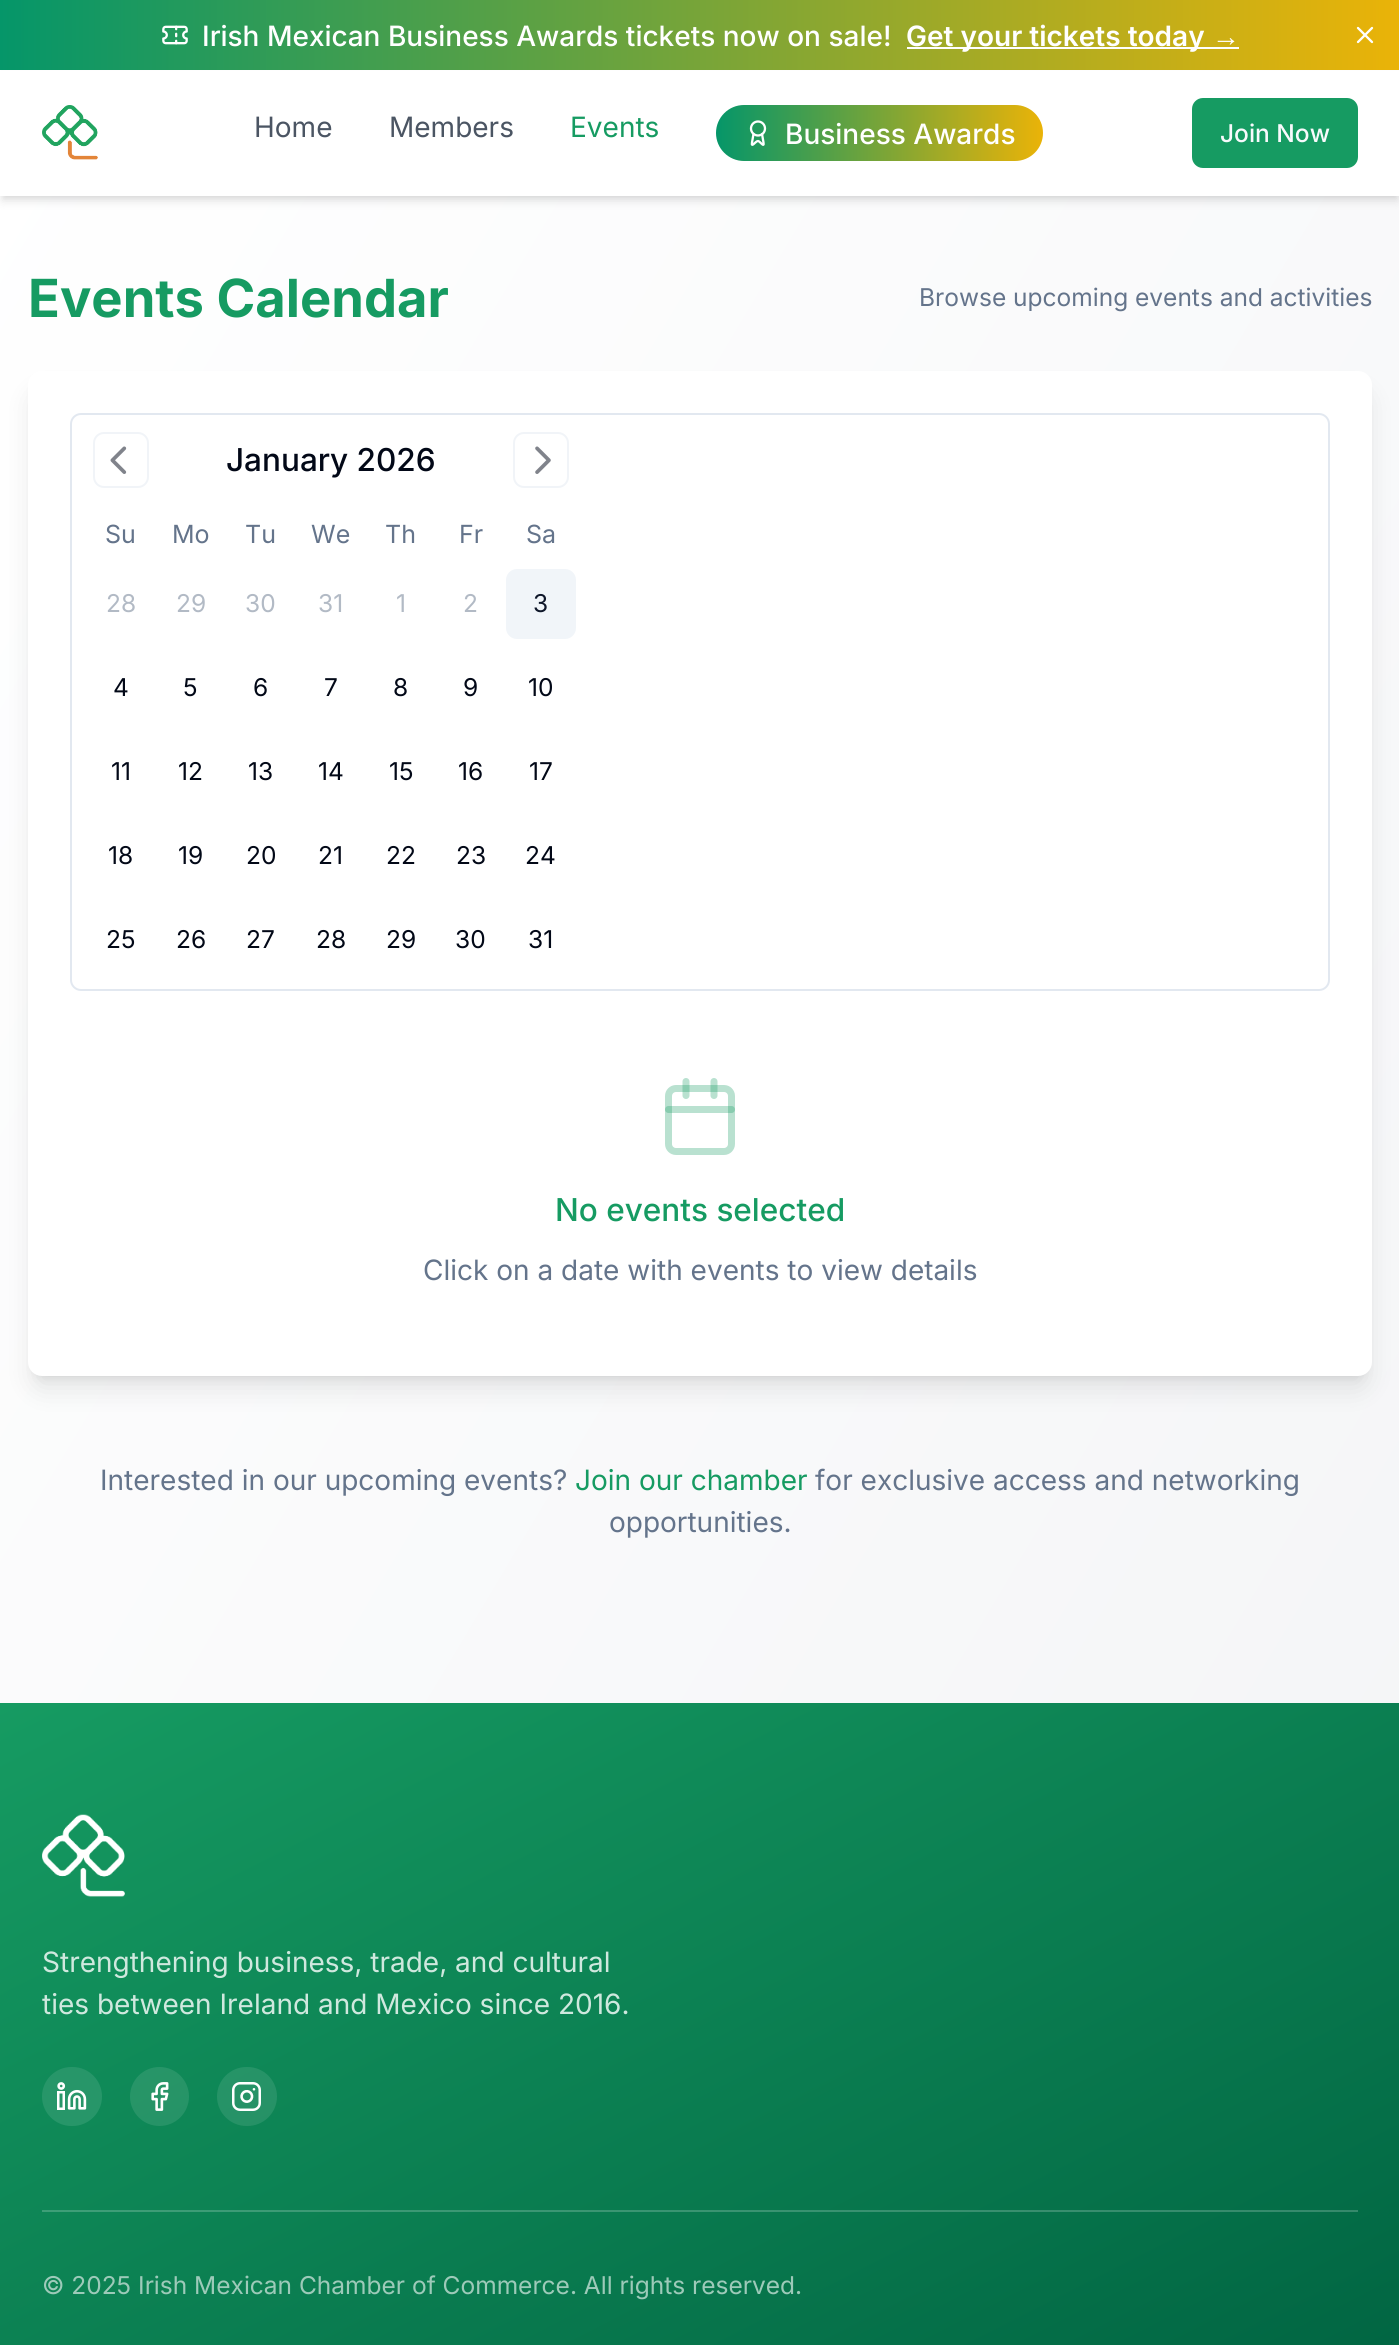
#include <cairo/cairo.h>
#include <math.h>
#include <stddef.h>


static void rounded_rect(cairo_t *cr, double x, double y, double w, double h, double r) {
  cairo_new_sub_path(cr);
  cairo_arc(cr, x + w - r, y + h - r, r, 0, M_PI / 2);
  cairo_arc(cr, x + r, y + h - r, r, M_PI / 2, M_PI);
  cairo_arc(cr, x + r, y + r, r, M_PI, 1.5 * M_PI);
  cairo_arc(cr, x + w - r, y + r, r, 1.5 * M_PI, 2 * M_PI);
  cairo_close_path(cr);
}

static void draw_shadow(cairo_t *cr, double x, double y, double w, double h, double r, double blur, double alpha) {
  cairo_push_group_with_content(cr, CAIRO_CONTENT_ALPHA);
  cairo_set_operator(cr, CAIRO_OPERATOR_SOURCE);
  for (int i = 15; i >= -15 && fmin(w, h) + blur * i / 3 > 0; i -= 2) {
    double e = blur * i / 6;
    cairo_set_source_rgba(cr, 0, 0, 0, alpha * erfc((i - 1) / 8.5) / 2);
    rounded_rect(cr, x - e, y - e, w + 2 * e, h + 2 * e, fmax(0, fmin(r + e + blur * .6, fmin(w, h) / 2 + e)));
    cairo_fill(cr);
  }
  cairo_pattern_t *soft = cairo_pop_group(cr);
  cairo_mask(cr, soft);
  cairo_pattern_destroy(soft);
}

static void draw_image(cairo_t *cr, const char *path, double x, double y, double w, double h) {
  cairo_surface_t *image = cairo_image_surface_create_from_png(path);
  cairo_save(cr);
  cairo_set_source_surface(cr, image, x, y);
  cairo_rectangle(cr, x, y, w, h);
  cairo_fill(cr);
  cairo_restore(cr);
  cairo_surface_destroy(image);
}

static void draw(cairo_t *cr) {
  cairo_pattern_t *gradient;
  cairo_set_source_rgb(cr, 1, 1, 1);
  cairo_paint(cr);
  gradient = cairo_pattern_create_linear(-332, 626, 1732, 1859);
  cairo_pattern_add_color_stop_rgba(gradient, 0, 1, 1, 1, 1);
  cairo_pattern_add_color_stop_rgba(gradient, 1, 243 / 255.0, 244 / 255.0, 246 / 255.0, 1);
  cairo_set_source(cr, gradient);
  cairo_pattern_destroy(gradient);
  cairo_rectangle(cr, 0, 196, 1399, 1507);
  cairo_fill(cr);
  cairo_set_source_rgb(cr, 0, 0, 0);
  draw_shadow(cr, 4, 77, 1393, 119, 0, 3.5, 0.1);
  draw_shadow(cr, 2, 79, 1396, 122, 0, 5, 0.1);
  gradient = cairo_pattern_create_linear(0, 35, 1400, 35);
  cairo_pattern_add_color_stop_rgba(gradient, 0, 5 / 255.0, 150 / 255.0, 105 / 255.0, 1);
  cairo_pattern_add_color_stop_rgba(gradient, 1, 234 / 255.0, 179 / 255.0, 8 / 255.0, 1);
  cairo_set_source(cr, gradient);
  cairo_pattern_destroy(gradient);
  cairo_rectangle(cr, 0, 0, 1399, 70);
  cairo_fill(cr);
  draw_image(cr, "images/1.png", 162, 25, 26, 20);
  cairo_set_source_rgb(cr, 1, 1, 1);
  cairo_rectangle(cr, 907, 47, 332, 2);
  cairo_fill(cr);
  cairo_new_path(cr);
  cairo_move_to(cr, 1372, 28);
  cairo_line_to(cr, 1358, 42);
  cairo_move_to(cr, 1358, 28);
  cairo_line_to(cr, 1372, 42);
  cairo_set_line_width(cr, 2.3);
  cairo_set_line_cap(cr, CAIRO_LINE_CAP_ROUND);
  cairo_set_line_join(cr, CAIRO_LINE_JOIN_ROUND);
  cairo_stroke(cr);
  cairo_rectangle(cr, 0, 71, 1399, 125);
  cairo_fill(cr);
  draw_image(cr, "images/2.png", 42, 105, 56, 55);
  gradient = cairo_pattern_create_linear(716, 133, 1043, 133);
  cairo_pattern_add_color_stop_rgba(gradient, 0, 5 / 255.0, 150 / 255.0, 105 / 255.0, 1);
  cairo_pattern_add_color_stop_rgba(gradient, 1, 234 / 255.0, 179 / 255.0, 8 / 255.0, 1);
  cairo_set_source(cr, gradient);
  cairo_pattern_destroy(gradient);
  rounded_rect(cr, 716, 105, 327, 56, 28);
  cairo_fill(cr);
  cairo_new_path(cr);
  cairo_move_to(cr, 762, 134);
  cairo_line_to(cr, 763.5, 142.5);
  cairo_curve_to(cr, 764.5, 148.5, 760, 141, 758, 141);
  cairo_curve_to(cr, 755.5, 141, 751, 148.5, 752, 142.5);
  cairo_line_to(cr, 753.5, 134);
  cairo_set_source_rgb(cr, 1, 1, 1);
  cairo_stroke(cr);
  cairo_arc(cr, 758, 128.5, 7, 0, 2 * M_PI);
  cairo_set_line_cap(cr, CAIRO_LINE_CAP_BUTT);
  cairo_set_line_join(cr, CAIRO_LINE_JOIN_MITER);
  cairo_stroke(cr);
  cairo_set_source_rgb(cr, 22 / 255.0, 155 / 255.0, 98 / 255.0);
  rounded_rect(cr, 1192, 98, 166, 70, 11);
  cairo_fill(cr);
  cairo_set_source_rgb(cr, 0, 0, 0);
  draw_shadow(cr, 35, 385, 1330, 991, 7, 5, 0.1);
  draw_shadow(cr, 33, 394, 1334, 994, 9, 13, 0.1);
  cairo_set_source_rgb(cr, 1, 1, 1);
  rounded_rect(cr, 28, 371, 1344, 1005, 14);
  cairo_fill(cr);
  rounded_rect(cr, 71, 414, 1258, 576, 10);
  cairo_set_source_rgb(cr, 226 / 255.0, 232 / 255.0, 240 / 255.0);
  cairo_set_line_width(cr, 2);
  cairo_stroke(cr);
  rounded_rect(cr, 94, 433, 54, 54, 10);
  cairo_set_source_rgb(cr, 241 / 255.0, 244 / 255.0, 248 / 255.0);
  cairo_stroke(cr);
  draw_image(cr, "images/3.png", 110, 446, 17, 28);
  rounded_rect(cr, 514, 433, 54, 54, 10);
  cairo_stroke(cr);
  draw_image(cr, "images/4.png", 535, 446, 16, 28);
  cairo_set_source_rgb(cr, 241 / 255.0, 245 / 255.0, 249 / 255.0);
  rounded_rect(cr, 506, 569, 70, 70, 11);
  cairo_fill(cr);
  cairo_new_path(cr);
  cairo_move_to(cr, 686, 1081.5);
  cairo_line_to(cr, 686, 1095.5);
  cairo_move_to(cr, 714, 1081.5);
  cairo_line_to(cr, 714, 1095.5);
  cairo_set_source_rgb(cr, 185 / 255.0, 225 / 255.0, 208 / 255.0);
  cairo_set_line_width(cr, 7);
  cairo_set_line_cap(cr, CAIRO_LINE_CAP_ROUND);
  cairo_set_line_join(cr, CAIRO_LINE_JOIN_ROUND);
  cairo_stroke(cr);
  rounded_rect(cr, 668.5, 1088.5, 63, 63, 7.5);
  cairo_set_source_rgba(cr, 22 / 255.0, 155 / 255.0, 98 / 255.0, 0.3);
  cairo_set_line_cap(cr, CAIRO_LINE_CAP_BUTT);
  cairo_set_line_join(cr, CAIRO_LINE_JOIN_MITER);
  cairo_stroke(cr);
  cairo_new_path(cr);
  cairo_move_to(cr, 668.5, 1109.5);
  cairo_line_to(cr, 731.5, 1109.5);
  cairo_set_line_cap(cr, CAIRO_LINE_CAP_ROUND);
  cairo_set_line_join(cr, CAIRO_LINE_JOIN_ROUND);
  cairo_stroke(cr);
  gradient = cairo_pattern_create_linear(412, 1493, 988, 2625);
  cairo_pattern_add_color_stop_rgba(gradient, 0, 22 / 255.0, 155 / 255.0, 98 / 255.0, 1);
  cairo_pattern_add_color_stop_rgba(gradient, 1, 0, 99 / 255.0, 65 / 255.0, 1);
  cairo_set_source(cr, gradient);
  cairo_pattern_destroy(gradient);
  cairo_rectangle(cr, 0, 1703, 1399, 642);
  cairo_fill(cr);
  gradient = cairo_pattern_create_linear(412, 1493, 988, 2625);
  cairo_pattern_add_color_stop_rgba(gradient, 0, 69 / 255.0, 175 / 255.0, 129 / 255.0, 1);
  cairo_pattern_add_color_stop_rgba(gradient, 1, 51 / 255.0, 130 / 255.0, 103 / 255.0, 1);
  cairo_set_source(cr, gradient);
  cairo_pattern_destroy(gradient);
  cairo_rectangle(cr, 42, 2210, 1316, 2);
  cairo_fill(cr);
  draw_image(cr, "images/5.png", 42, 1814, 83, 83);
  cairo_set_source_rgb(cr, 39 / 255.0, 150 / 255.0, 105 / 255.0);
  rounded_rect(cr, 42, 2067, 60, 59, 29.5);
  cairo_fill(cr);
  draw_image(cr, "images/6.png", 57, 2082, 30, 28);
  cairo_set_source_rgba(cr, 1, 1, 1, 0.1);
  cairo_arc(cr, 159.5, 2096.5, 29.5, 0, 2 * M_PI);
  cairo_fill(cr);
  draw_image(cr, "images/7.png", 151, 2082, 18, 29);
  rounded_rect(cr, 217, 2067, 60, 59, 29.5);
  cairo_fill(cr);
  draw_image(cr, "images/8.png", 232, 2082, 29, 29);
  cairo_select_font_face(cr, "Inter Medium", CAIRO_FONT_SLANT_NORMAL, CAIRO_FONT_WEIGHT_NORMAL);
  cairo_set_font_size(cr, 28);
  cairo_set_source_rgb(cr, 1, 1, 1);
  cairo_move_to(cr, 202, 46);
  cairo_show_text(cr, "Irish Mexican Business Awards tickets now on sale!");
  cairo_select_font_face(cr, "Inter SemiBold", CAIRO_FONT_SLANT_NORMAL, CAIRO_FONT_WEIGHT_NORMAL);
  cairo_move_to(cr, 906, 46);
  cairo_show_text(cr, "Get your tickets today");
  cairo_select_font_face(cr, "Liberation Sans", CAIRO_FONT_SLANT_NORMAL, CAIRO_FONT_WEIGHT_BOLD);
  cairo_move_to(cr, 1212, 46);
  cairo_show_text(cr, "→");
  cairo_select_font_face(cr, "Inter", CAIRO_FONT_SLANT_NORMAL, CAIRO_FONT_WEIGHT_NORMAL);
  cairo_set_source_rgb(cr, 75 / 255.0, 85 / 255.0, 99 / 255.0);
  cairo_move_to(cr, 254, 137);
  cairo_show_text(cr, "Home");
  cairo_move_to(cr, 389, 137);
  cairo_show_text(cr, "Members");
  cairo_set_source_rgb(cr, 22 / 255.0, 155 / 255.0, 98 / 255.0);
  cairo_move_to(cr, 570, 137);
  cairo_show_text(cr, "Events");
  cairo_select_font_face(cr, "Inter Medium", CAIRO_FONT_SLANT_NORMAL, CAIRO_FONT_WEIGHT_NORMAL);
  cairo_set_source_rgb(cr, 1, 1, 1);
  cairo_move_to(cr, 785, 144);
  cairo_show_text(cr, "Business Awards");
  cairo_set_font_size(cr, 24.5);
  cairo_set_source_rgb(cr, 248 / 255.0, 250 / 255.0, 252 / 255.0);
  cairo_move_to(cr, 1220, 142);
  cairo_show_text(cr, "Join Now");
  cairo_select_font_face(cr, "Inter", CAIRO_FONT_SLANT_NORMAL, CAIRO_FONT_WEIGHT_BOLD);
  cairo_set_font_size(cr, 52.5);
  cairo_set_source_rgb(cr, 22 / 255.0, 155 / 255.0, 98 / 255.0);
  cairo_move_to(cr, 28, 317);
  cairo_show_text(cr, "Events Calendar");
  cairo_select_font_face(cr, "Inter", CAIRO_FONT_SLANT_NORMAL, CAIRO_FONT_WEIGHT_NORMAL);
  cairo_set_font_size(cr, 24.5);
  cairo_set_source_rgb(cr, 100 / 255.0, 116 / 255.0, 139 / 255.0);
  cairo_move_to(cr, 919, 306);
  cairo_show_text(cr, "Browse upcoming events and activities");
  cairo_select_font_face(cr, "Inter Medium", CAIRO_FONT_SLANT_NORMAL, CAIRO_FONT_WEIGHT_NORMAL);
  cairo_set_font_size(cr, 31.5);
  cairo_set_source_rgb(cr, 2 / 255.0, 8 / 255.0, 23 / 255.0);
  cairo_move_to(cr, 226, 471);
  cairo_show_text(cr, "January 2026");
  cairo_select_font_face(cr, "Inter", CAIRO_FONT_SLANT_NORMAL, CAIRO_FONT_WEIGHT_NORMAL);
  cairo_set_font_size(cr, 25);
  cairo_set_source_rgb(cr, 100 / 255.0, 116 / 255.0, 139 / 255.0);
  cairo_move_to(cr, 105, 543);
  cairo_show_text(cr, "Su");
  cairo_move_to(cr, 172, 543);
  cairo_show_text(cr, "Mo");
  cairo_move_to(cr, 245, 543);
  cairo_show_text(cr, "Tu");
  cairo_move_to(cr, 311, 543);
  cairo_show_text(cr, "We");
  cairo_move_to(cr, 385, 543);
  cairo_show_text(cr, "Th");
  cairo_move_to(cr, 459, 543);
  cairo_show_text(cr, "Fr");
  cairo_move_to(cr, 526, 543);
  cairo_show_text(cr, "Sa");
  cairo_set_font_size(cr, 24.5);
  cairo_set_source_rgb(cr, 178 / 255.0, 186 / 255.0, 197 / 255.0);
  cairo_move_to(cr, 106, 612);
  cairo_show_text(cr, "28");
  cairo_move_to(cr, 176, 612);
  cairo_show_text(cr, "29");
  cairo_move_to(cr, 245, 612);
  cairo_show_text(cr, "30");
  cairo_move_to(cr, 318, 612);
  cairo_show_text(cr, "31");
  cairo_move_to(cr, 396, 612);
  cairo_show_text(cr, "1");
  cairo_move_to(cr, 463, 612);
  cairo_show_text(cr, "2");
  cairo_set_source_rgb(cr, 15 / 255.0, 23 / 255.0, 42 / 255.0);
  cairo_move_to(cr, 533, 612);
  cairo_show_text(cr, "3");
  cairo_set_source_rgb(cr, 2 / 255.0, 8 / 255.0, 23 / 255.0);
  cairo_move_to(cr, 113, 696);
  cairo_show_text(cr, "4");
  cairo_move_to(cr, 183, 696);
  cairo_show_text(cr, "5");
  cairo_move_to(cr, 253, 696);
  cairo_show_text(cr, "6");
  cairo_move_to(cr, 324, 696);
  cairo_show_text(cr, "7");
  cairo_move_to(cr, 393, 696);
  cairo_show_text(cr, "8");
  cairo_move_to(cr, 463, 696);
  cairo_show_text(cr, "9");
  cairo_move_to(cr, 528, 696);
  cairo_show_text(cr, "10");
  cairo_move_to(cr, 111, 780);
  cairo_show_text(cr, "11");
  cairo_move_to(cr, 178, 780);
  cairo_show_text(cr, "12");
  cairo_move_to(cr, 248, 780);
  cairo_show_text(cr, "13");
  cairo_move_to(cr, 318, 780);
  cairo_show_text(cr, "14");
  cairo_move_to(cr, 389, 780);
  cairo_show_text(cr, "15");
  cairo_move_to(cr, 458, 780);
  cairo_show_text(cr, "16");
  cairo_move_to(cr, 529, 780);
  cairo_show_text(cr, "17");
  cairo_move_to(cr, 108, 864);
  cairo_show_text(cr, "18");
  cairo_move_to(cr, 178, 864);
  cairo_show_text(cr, "19");
  cairo_move_to(cr, 246, 864);
  cairo_show_text(cr, "20");
  cairo_move_to(cr, 318, 864);
  cairo_show_text(cr, "21");
  cairo_move_to(cr, 386, 864);
  cairo_show_text(cr, "22");
  cairo_move_to(cr, 456, 864);
  cairo_show_text(cr, "23");
  cairo_move_to(cr, 525, 864);
  cairo_show_text(cr, "24");
  cairo_move_to(cr, 106, 948);
  cairo_show_text(cr, "25");
  cairo_move_to(cr, 176, 948);
  cairo_show_text(cr, "26");
  cairo_move_to(cr, 246, 948);
  cairo_show_text(cr, "27");
  cairo_move_to(cr, 316, 948);
  cairo_show_text(cr, "28");
  cairo_move_to(cr, 386, 948);
  cairo_show_text(cr, "29");
  cairo_move_to(cr, 455, 948);
  cairo_show_text(cr, "30");
  cairo_move_to(cr, 528, 948);
  cairo_show_text(cr, "31");
  cairo_select_font_face(cr, "Inter Medium", CAIRO_FONT_SLANT_NORMAL, CAIRO_FONT_WEIGHT_NORMAL);
  cairo_set_font_size(cr, 31.5);
  cairo_set_source_rgb(cr, 22 / 255.0, 155 / 255.0, 98 / 255.0);
  cairo_move_to(cr, 555, 1221);
  cairo_show_text(cr, "No events selected");
  cairo_select_font_face(cr, "Inter", CAIRO_FONT_SLANT_NORMAL, CAIRO_FONT_WEIGHT_NORMAL);
  cairo_set_font_size(cr, 28);
  cairo_set_source_rgb(cr, 100 / 255.0, 116 / 255.0, 139 / 255.0);
  cairo_move_to(cr, 423, 1280);
  cairo_show_text(cr, "Click on a date with events to view details");
  cairo_move_to(cr, 100, 1490);
  cairo_show_text(cr, "Interested in our upcoming events?");
  cairo_set_source_rgb(cr, 22 / 255.0, 155 / 255.0, 98 / 255.0);
  cairo_move_to(cr, 575, 1490);
  cairo_show_text(cr, "Join our chamber");
  cairo_set_source_rgb(cr, 100 / 255.0, 116 / 255.0, 139 / 255.0);
  cairo_move_to(cr, 815, 1490);
  cairo_show_text(cr, "for exclusive access and networking");
  cairo_move_to(cr, 609, 1532);
  cairo_show_text(cr, "opportunities.");
  cairo_set_source_rgb(cr, 207 / 255.0, 232 / 255.0, 222 / 255.0);
  cairo_move_to(cr, 42, 1972);
  cairo_show_text(cr, "Strengthening business, trade, and cultural");
  cairo_move_to(cr, 42, 2014);
  cairo_show_text(cr, "ties between Ireland and Mexico since 2016.");
  cairo_set_font_size(cr, 24.5);
  cairo_set_source_rgb(cr, 157 / 255.0, 202 / 255.0, 185 / 255.0);
  cairo_move_to(cr, 42, 2294);
  cairo_show_text(cr, "© 2025 Irish Mexican Chamber of Commerce. All rights reserved.");
}

int main(void) {
  cairo_surface_t *surface = cairo_image_surface_create(CAIRO_FORMAT_RGB24, 1399, 2345);
  cairo_t *cr = cairo_create(surface);
  cairo_font_options_t *options = cairo_font_options_create();
  cairo_font_options_set_hint_metrics(options, CAIRO_HINT_METRICS_OFF);
  cairo_font_options_set_hint_style(options, CAIRO_HINT_STYLE_NONE);
  cairo_set_font_options(cr, options);
  cairo_set_miter_limit(cr, 4);
  draw(cr);
  cairo_surface_write_to_png(surface, "out.png");
  cairo_font_options_destroy(options);
  cairo_destroy(cr);
  cairo_surface_destroy(surface);
  return 0;
}
